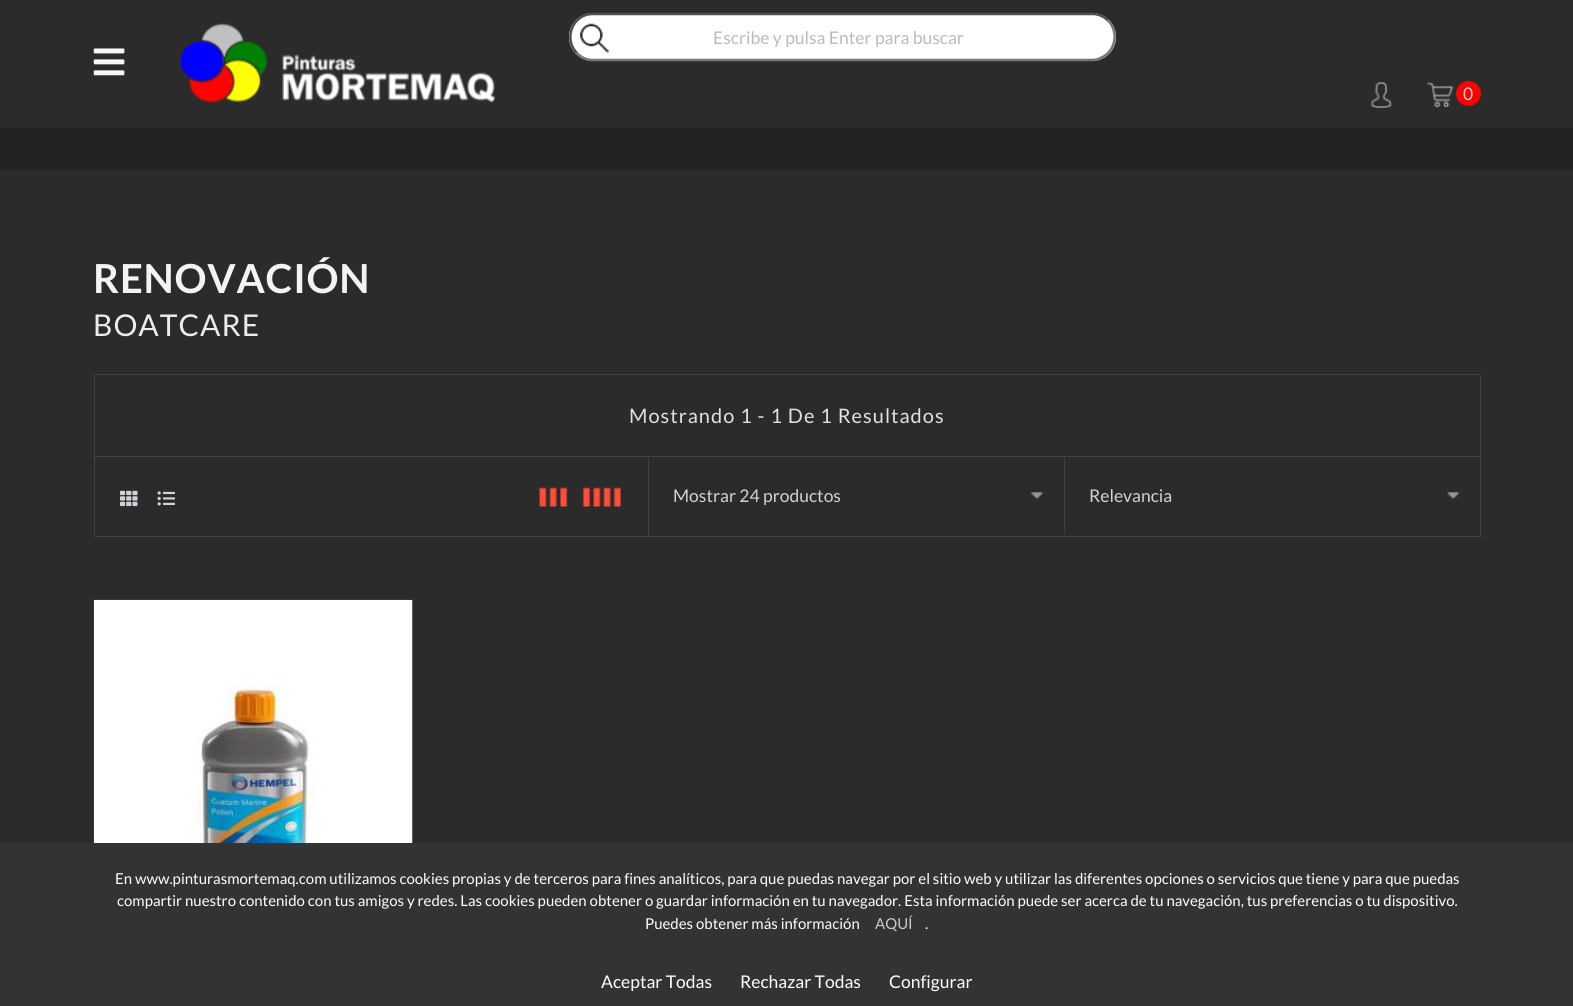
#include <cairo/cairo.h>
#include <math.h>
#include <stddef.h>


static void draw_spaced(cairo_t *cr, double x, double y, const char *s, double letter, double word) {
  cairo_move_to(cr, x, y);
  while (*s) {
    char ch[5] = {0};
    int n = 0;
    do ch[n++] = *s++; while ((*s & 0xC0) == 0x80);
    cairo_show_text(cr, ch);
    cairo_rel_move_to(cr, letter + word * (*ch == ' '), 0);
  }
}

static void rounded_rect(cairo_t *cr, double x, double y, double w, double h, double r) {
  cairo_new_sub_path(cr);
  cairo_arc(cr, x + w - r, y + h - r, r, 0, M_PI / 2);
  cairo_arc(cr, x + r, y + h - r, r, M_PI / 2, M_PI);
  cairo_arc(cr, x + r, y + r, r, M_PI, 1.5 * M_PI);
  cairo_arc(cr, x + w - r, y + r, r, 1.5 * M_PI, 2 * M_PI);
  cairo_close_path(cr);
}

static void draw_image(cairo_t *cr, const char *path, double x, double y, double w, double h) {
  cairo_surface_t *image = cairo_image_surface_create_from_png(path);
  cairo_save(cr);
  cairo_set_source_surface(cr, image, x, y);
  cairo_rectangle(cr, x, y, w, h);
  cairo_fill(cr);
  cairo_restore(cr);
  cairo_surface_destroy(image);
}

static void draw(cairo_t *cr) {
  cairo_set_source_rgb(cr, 43 / 255.0, 43 / 255.0, 43 / 255.0);
  cairo_paint(cr);
  draw_image(cr, "images/1.png", 93, 48, 32, 28);
  draw_image(cr, "images/2.png", 180, 23, 315, 80);
  cairo_set_source_rgb(cr, 1, 1, 1);
  rounded_rect(cr, 569, 13, 547, 48, 24);
  cairo_fill(cr);
  draw_image(cr, "images/3.png", 580, 23, 29, 30);
  cairo_new_path(cr);
  cairo_move_to(cr, 1108, 20.5);
  cairo_curve_to(cr, 1119.5, 32, 1115.5, 52, 1100.5, 58);
  cairo_curve_to(cr, 1098, 59.5, 1095, 60, 1092, 60);
  cairo_line_to(cr, 591, 60);
  cairo_curve_to(cr, 585.5, 59.5, 580.5, 57, 577, 53);
  cairo_set_source_rgb(cr, 118 / 255.0, 118 / 255.0, 118 / 255.0);
  cairo_set_line_width(cr, 2.5);
  cairo_stroke(cr);
  cairo_new_path(cr);
  cairo_move_to(cr, 577, 53);
  cairo_curve_to(cr, 565.5, 42, 569.5, 21.5, 584.5, 15.5);
  cairo_curve_to(cr, 587, 14.5, 590, 14, 593, 14);
  cairo_line_to(cr, 1094, 14);
  cairo_curve_to(cr, 1099.5, 14.5, 1104.5, 17, 1108, 20.5);
  cairo_set_source_rgb(cr, 79 / 255.0, 79 / 255.0, 79 / 255.0);
  cairo_stroke(cr);
  draw_image(cr, "images/4.png", 1370, 82, 22, 26);
  draw_image(cr, "images/5.png", 1427, 82, 27, 26);
  cairo_set_source_rgb(cr, 1, 0, 0);
  cairo_arc(cr, 1468.5, 93.5, 12.5, 0, 2 * M_PI);
  cairo_fill(cr);
  cairo_set_source_rgb(cr, 35 / 255.0, 35 / 255.0, 35 / 255.0);
  cairo_rectangle(cr, 0, 128, 1573, 42);
  cairo_fill(cr);
  cairo_set_source_rgb(cr, 64 / 255.0, 64 / 255.0, 64 / 255.0);
  cairo_rectangle(cr, 94, 374, 1387, 1);
  cairo_fill(cr);
  cairo_rectangle(cr, 94, 536, 1387, 1);
  cairo_fill(cr);
  cairo_rectangle(cr, 1480, 376, 1, 160);
  cairo_fill(cr);
  cairo_rectangle(cr, 94, 456, 1387, 1);
  cairo_fill(cr);
  cairo_rectangle(cr, 94, 376, 1, 160);
  cairo_fill(cr);
  draw_image(cr, "images/6.png", 120, 490, 18, 17);
  draw_image(cr, "images/7.png", 157, 491, 18, 15);
  cairo_rectangle(cr, 648, 458, 1, 78);
  cairo_fill(cr);
  draw_image(cr, "images/8.png", 539, 487, 29, 20);
  draw_image(cr, "images/9.png", 582, 487, 39, 20);
  draw_image(cr, "images/10.png", 1031, 492, 12, 7);
  cairo_rectangle(cr, 1064, 458, 1, 76);
  cairo_fill(cr);
  draw_image(cr, "images/11.png", 1447, 492, 12, 7);
  draw_image(cr, "images/12.png", 93, 599, 320, 244);
  cairo_set_source_rgb(cr, 51 / 255.0, 51 / 255.0, 51 / 255.0);
  cairo_rectangle(cr, 0, 843, 1573, 163);
  cairo_fill(cr);
  cairo_select_font_face(cr, "Lato", CAIRO_FONT_SLANT_NORMAL, CAIRO_FONT_WEIGHT_NORMAL);
  cairo_set_font_size(cr, 17.5);
  cairo_set_source_rgb(cr, 187 / 255.0, 187 / 255.0, 187 / 255.0);
  cairo_move_to(cr, 713, 44);
  cairo_show_text(cr, "Escribe y pulsa Enter para buscar");
  cairo_set_source_rgb(cr, 207 / 255.0, 212 / 255.0, 218 / 255.0);
  cairo_move_to(cr, 1463, 100);
  cairo_show_text(cr, "0");
  cairo_select_font_face(cr, "Lato", CAIRO_FONT_SLANT_NORMAL, CAIRO_FONT_WEIGHT_BOLD);
  cairo_set_font_size(cr, 40);
  cairo_set_source_rgb(cr, 241 / 255.0, 243 / 255.0, 245 / 255.0);
  draw_spaced(cr, 93, 293, "RENOVACIÓN", 0.75, 0);
  cairo_select_font_face(cr, "Lato", CAIRO_FONT_SLANT_NORMAL, CAIRO_FONT_WEIGHT_NORMAL);
  cairo_set_font_size(cr, 30);
  cairo_set_source_rgb(cr, 234 / 255.0, 237 / 255.0, 239 / 255.0);
  draw_spaced(cr, 93, 336, "BOATCARE", 1, 0);
  cairo_set_font_size(cr, 20);
  cairo_set_source_rgb(cr, 222 / 255.0, 226 / 255.0, 230 / 255.0);
  draw_spaced(cr, 629, 423, "Mostrando 1 - 1 De 1 Resultados", 1, 0);
  cairo_set_font_size(cr, 17.5);
  cairo_set_source_rgb(cr, 207 / 255.0, 212 / 255.0, 218 / 255.0);
  cairo_move_to(cr, 673, 502);
  cairo_show_text(cr, "Mostrar 24 productos");
  cairo_move_to(cr, 1089, 502);
  cairo_show_text(cr, "Relevancia");
  cairo_set_font_size(cr, 15);
  cairo_set_source_rgb(cr, 1, 1, 1);
  cairo_move_to(cr, 115, 884);
  cairo_show_text(cr, "En www.pinturasmortemaq.com utilizamos cookies propias y de terceros para fines analíticos, para que puedas navegar por el sitio web y utilizar las diferentes opciones o servicios que tiene y para que puedas");
  cairo_move_to(cr, 117, 906);
  cairo_show_text(cr, "compartir nuestro contenido con tus amigos y redes. Las cookies pueden obtener o guardar información en tu navegador. Esta información puede ser acerca de tu navegación, tus preferencias o tu dispositivo.");
  cairo_move_to(cr, 645, 929);
  cairo_show_text(cr, "Puedes obtener más información");
  cairo_set_source_rgb(cr, 203 / 255.0, 203 / 255.0, 203 / 255.0);
  cairo_move_to(cr, 875, 929);
  cairo_show_text(cr, "AQUÍ");
  cairo_set_source_rgb(cr, 1, 1, 1);
  cairo_move_to(cr, 925, 929);
  cairo_show_text(cr, ".");
  cairo_set_font_size(cr, 17.5);
  cairo_move_to(cr, 601, 988);
  cairo_show_text(cr, "Aceptar Todas");
  cairo_move_to(cr, 740, 988);
  cairo_show_text(cr, "Rechazar Todas");
  cairo_move_to(cr, 889, 988);
  cairo_show_text(cr, "Configurar");
}

int main(void) {
  cairo_surface_t *surface = cairo_image_surface_create(CAIRO_FORMAT_RGB24, 1573, 1006);
  cairo_t *cr = cairo_create(surface);
  cairo_font_options_t *options = cairo_font_options_create();
  cairo_font_options_set_hint_metrics(options, CAIRO_HINT_METRICS_OFF);
  cairo_font_options_set_hint_style(options, CAIRO_HINT_STYLE_NONE);
  cairo_set_font_options(cr, options);
  cairo_set_miter_limit(cr, 4);
  draw(cr);
  cairo_surface_write_to_png(surface, "out.png");
  cairo_font_options_destroy(options);
  cairo_destroy(cr);
  cairo_surface_destroy(surface);
  return 0;
}
